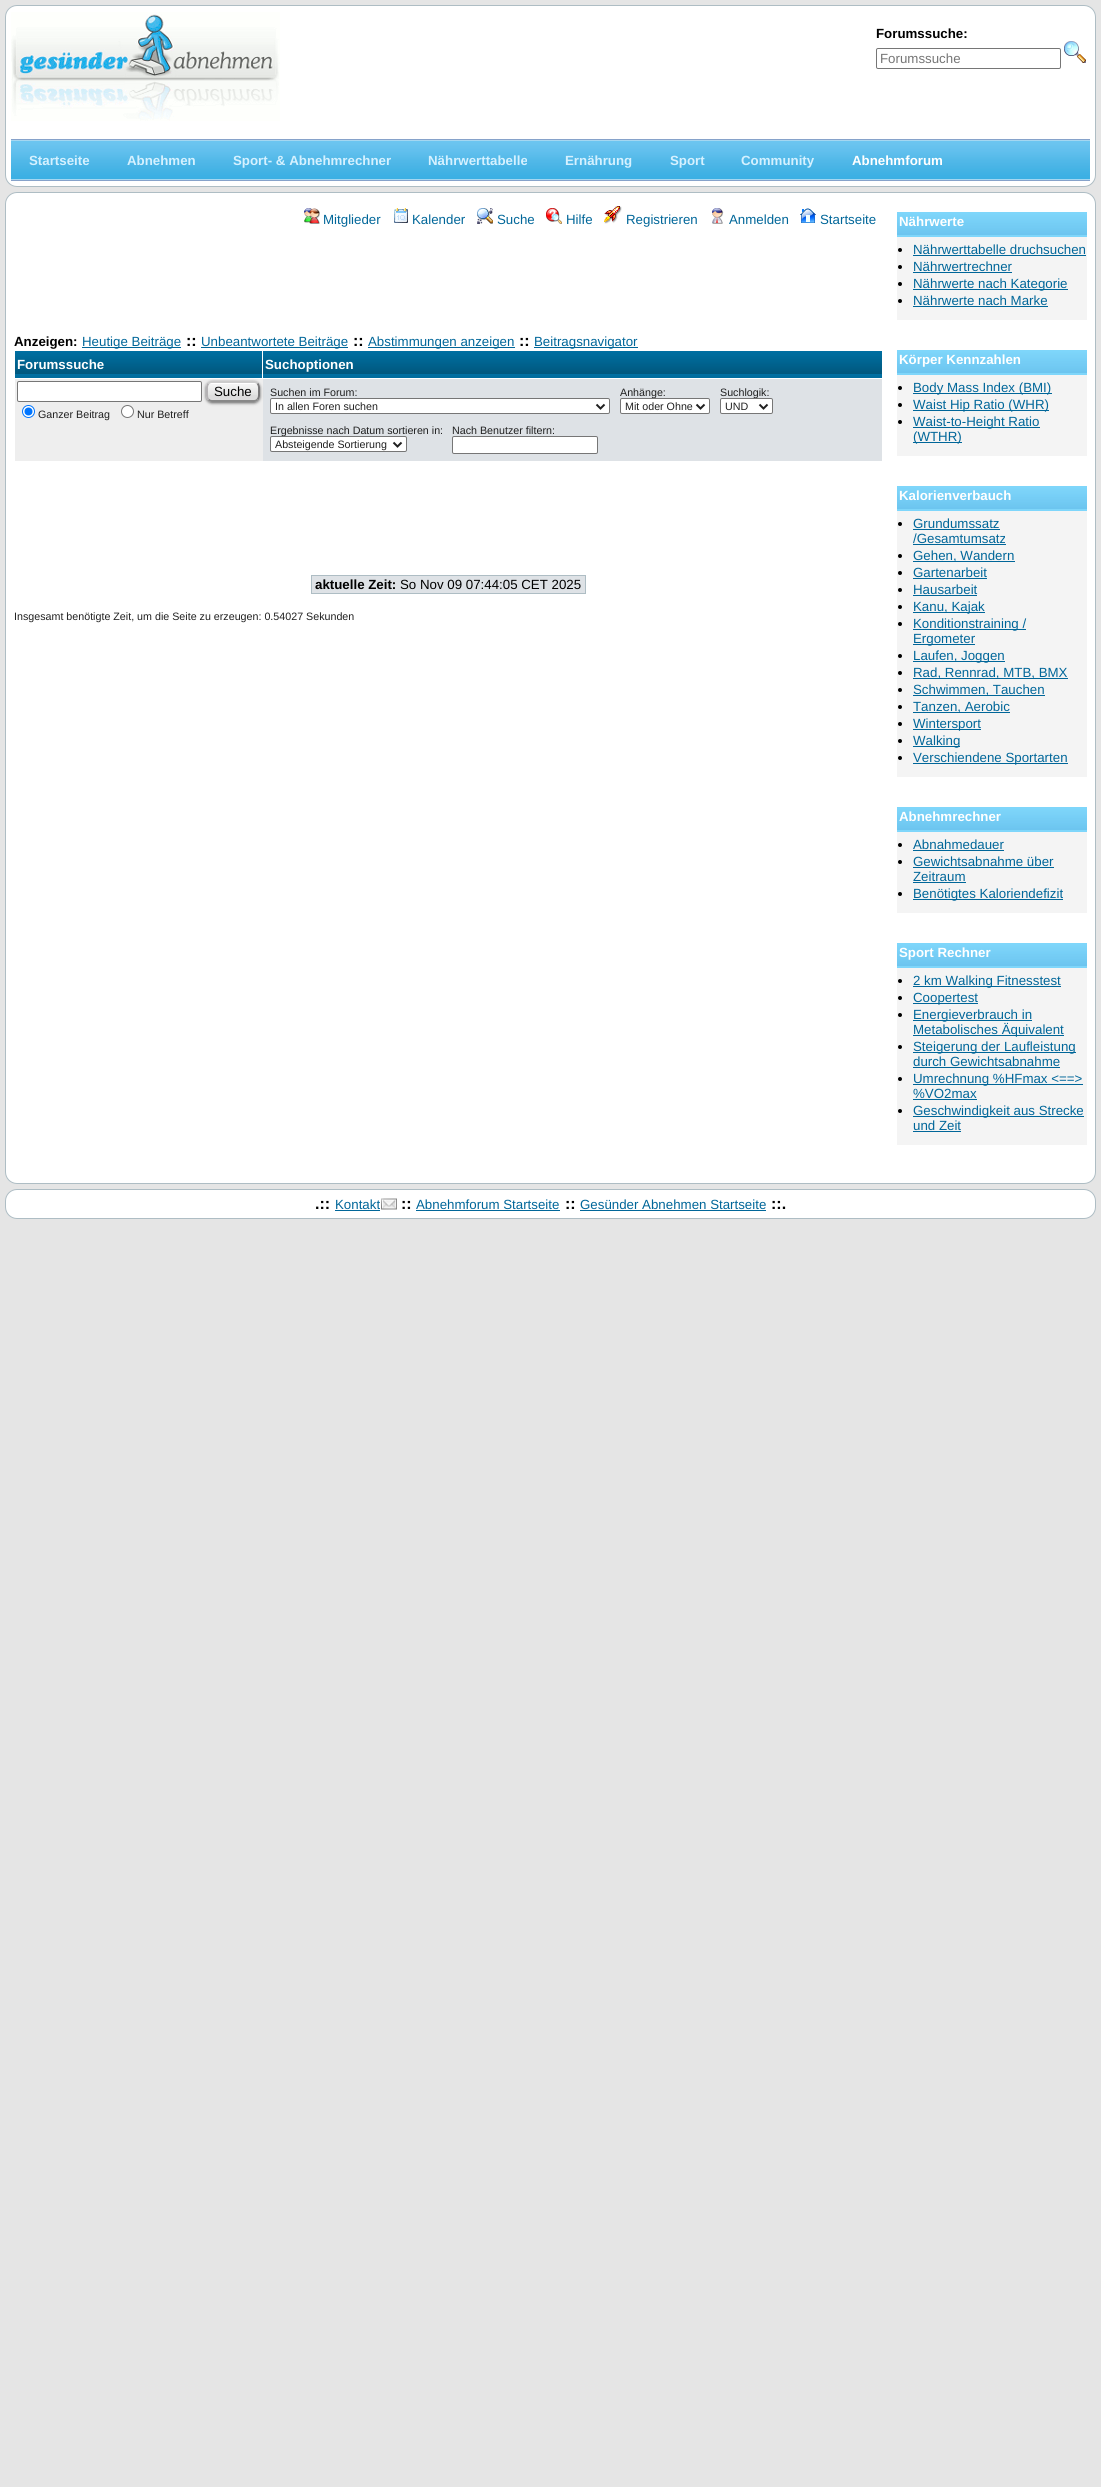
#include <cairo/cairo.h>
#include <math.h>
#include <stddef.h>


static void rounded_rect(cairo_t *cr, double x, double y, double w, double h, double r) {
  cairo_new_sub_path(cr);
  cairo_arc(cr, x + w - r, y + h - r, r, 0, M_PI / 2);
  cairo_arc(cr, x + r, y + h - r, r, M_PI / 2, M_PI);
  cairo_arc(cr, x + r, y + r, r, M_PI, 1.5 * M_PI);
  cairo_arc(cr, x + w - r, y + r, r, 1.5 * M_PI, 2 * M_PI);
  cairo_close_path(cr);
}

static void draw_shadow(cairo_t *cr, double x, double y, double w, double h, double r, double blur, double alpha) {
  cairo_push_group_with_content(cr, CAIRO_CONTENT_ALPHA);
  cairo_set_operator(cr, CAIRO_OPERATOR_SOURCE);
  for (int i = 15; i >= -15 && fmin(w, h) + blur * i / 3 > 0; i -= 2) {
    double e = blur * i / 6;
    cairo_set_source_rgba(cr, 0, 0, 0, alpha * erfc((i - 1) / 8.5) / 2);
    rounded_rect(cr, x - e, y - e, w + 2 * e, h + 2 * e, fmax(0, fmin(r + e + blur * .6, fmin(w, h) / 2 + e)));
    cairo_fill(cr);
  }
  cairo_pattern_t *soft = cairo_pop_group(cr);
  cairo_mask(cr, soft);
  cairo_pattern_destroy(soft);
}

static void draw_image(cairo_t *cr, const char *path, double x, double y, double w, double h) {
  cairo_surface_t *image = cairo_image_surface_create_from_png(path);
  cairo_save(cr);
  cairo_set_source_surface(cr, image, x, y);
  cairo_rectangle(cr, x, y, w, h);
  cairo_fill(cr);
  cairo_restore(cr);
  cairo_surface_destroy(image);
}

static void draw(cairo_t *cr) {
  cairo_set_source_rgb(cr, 229 / 255.0, 229 / 255.0, 229 / 255.0);
  cairo_paint(cr);
  cairo_set_source_rgb(cr, 1, 1, 1);
  rounded_rect(cr, 5.5, 5.5, 1090, 181, 11.5);
  cairo_fill_preserve(cr);
  cairo_set_source_rgb(cr, 174 / 255.0, 189 / 255.0, 196 / 255.0);
  cairo_set_line_width(cr, 1);
  cairo_stroke(cr);
  draw_image(cr, "images/1.png", 11, 12, 269, 109);
  rounded_rect(cr, 876.5, 48.5, 184, 20, 1.5);
  cairo_set_source_rgb(cr, 118 / 255.0, 118 / 255.0, 118 / 255.0);
  cairo_stroke(cr);
  draw_image(cr, "images/2.png", 1064, 41, 22, 22);
  draw_image(cr, "images/3.png", 11, 139, 1079, 42);
  cairo_set_source_rgb(cr, 1, 1, 1);
  rounded_rect(cr, 5.5, 192.5, 1090, 991, 11.5);
  cairo_fill_preserve(cr);
  cairo_set_source_rgb(cr, 174 / 255.0, 189 / 255.0, 196 / 255.0);
  cairo_stroke(cr);
  draw_image(cr, "images/4.png", 304, 208, 16, 16);
  draw_image(cr, "images/5.png", 394, 208, 14, 15);
  draw_image(cr, "images/6.png", 477, 208, 16, 16);
  draw_image(cr, "images/7.png", 546, 208, 16, 16);
  draw_image(cr, "images/8.png", 604, 206, 18, 18);
  draw_image(cr, "images/9.png", 712, 208, 12, 16);
  draw_image(cr, "images/10.png", 800, 208, 16, 15);
  cairo_set_source_rgb(cr, 0, 102 / 255.0, 153 / 255.0);
  cairo_rectangle(cr, 82, 347, 99, 1);
  cairo_fill(cr);
  cairo_rectangle(cr, 201, 347, 147, 1);
  cairo_fill(cr);
  cairo_rectangle(cr, 368, 347, 147, 1);
  cairo_fill(cr);
  cairo_rectangle(cr, 534, 347, 104, 1);
  cairo_fill(cr);
  draw_image(cr, "images/11.png", 15, 351, 247, 27);
  draw_image(cr, "images/12.png", 263, 351, 619, 27);
  cairo_set_source_rgb(cr, 238 / 255.0, 238 / 255.0, 238 / 255.0);
  cairo_rectangle(cr, 15, 379, 248, 82);
  cairo_fill(cr);
  cairo_set_source_rgb(cr, 1, 1, 1);
  rounded_rect(cr, 17.5, 381.5, 184, 20, 1.5);
  cairo_fill_preserve(cr);
  cairo_set_source_rgb(cr, 118 / 255.0, 118 / 255.0, 118 / 255.0);
  cairo_stroke(cr);
  cairo_set_source_rgb(cr, 222 / 255.0, 226 / 255.0, 230 / 255.0);
  cairo_rectangle(cr, 263, 379, 619, 82);
  cairo_fill(cr);
  cairo_set_source_rgb(cr, 0, 0, 0);
  draw_shadow(cr, 206, 382, 54, 21, 6, 1.5, 0.6);
  cairo_set_source_rgb(cr, 221 / 255.0, 221 / 255.0, 221 / 255.0);
  rounded_rect(cr, 206, 381, 54, 21, 6);
  cairo_fill(cr);
  draw_image(cr, "images/13.png", 206, 383, 54, 12);
  cairo_new_path(cr);
  cairo_move_to(cr, 208.5, 383.5);
  cairo_curve_to(cr, 209.5, 382.5, 210.5, 382, 212, 382);
  cairo_line_to(cr, 254, 382);
  cairo_curve_to(cr, 255.5, 382, 256.5, 382.5, 257.5, 383.5);
  cairo_set_source_rgb(cr, 204 / 255.0, 204 / 255.0, 204 / 255.0);
  cairo_set_line_width(cr, 2);
  cairo_stroke(cr);
  cairo_new_path(cr);
  cairo_move_to(cr, 257.5, 383.5);
  cairo_curve_to(cr, 259.5, 385.5, 259, 389, 259, 391.5);
  cairo_curve_to(cr, 259, 394, 259.5, 397.5, 257.5, 399.5);
  cairo_set_source_rgb(cr, 120 / 255.0, 119 / 255.0, 120 / 255.0);
  cairo_stroke(cr);
  cairo_new_path(cr);
  cairo_move_to(cr, 257.5, 399.5);
  cairo_curve_to(cr, 256.5, 400.5, 255.5, 401, 254, 401);
  cairo_line_to(cr, 212, 401);
  cairo_curve_to(cr, 210.5, 401, 209.5, 400.5, 208.5, 399.5);
  cairo_set_source_rgb(cr, 136 / 255.0, 136 / 255.0, 136 / 255.0);
  cairo_stroke(cr);
  cairo_new_path(cr);
  cairo_move_to(cr, 208.5, 399.5);
  cairo_curve_to(cr, 206.5, 397.5, 207, 394, 207, 391.5);
  cairo_curve_to(cr, 207, 389, 206.5, 385.5, 208.5, 383.5);
  cairo_set_source_rgb(cr, 180 / 255.0, 178 / 255.0, 180 / 255.0);
  cairo_stroke(cr);
  cairo_set_source_rgb(cr, 1, 1, 1);
  cairo_arc(cr, 28.5, 411.5, 6, 0, 2 * M_PI);
  cairo_fill_preserve(cr);
  cairo_set_source_rgb(cr, 0, 117 / 255.0, 1);
  cairo_set_line_width(cr, 1);
  cairo_stroke(cr);
  cairo_arc(cr, 28.5, 411.5, 4, 0, 2 * M_PI);
  cairo_fill(cr);
  cairo_set_source_rgb(cr, 1, 1, 1);
  cairo_arc(cr, 127.5, 411.5, 6, 0, 2 * M_PI);
  cairo_fill_preserve(cr);
  cairo_set_source_rgb(cr, 118 / 255.0, 118 / 255.0, 118 / 255.0);
  cairo_stroke(cr);
  cairo_set_source_rgb(cr, 1, 1, 1);
  rounded_rect(cr, 270.5, 398.5, 339, 15, 1.5);
  cairo_fill_preserve(cr);
  cairo_set_source_rgb(cr, 118 / 255.0, 118 / 255.0, 118 / 255.0);
  cairo_stroke(cr);
  cairo_new_path(cr);
  cairo_move_to(cr, 596.5, 404.5);
  cairo_line_to(cr, 600.5, 408.5);
  cairo_line_to(cr, 604.5, 404.5);
  cairo_set_source_rgb(cr, 32 / 255.0, 32 / 255.0, 32 / 255.0);
  cairo_set_line_width(cr, 2);
  cairo_stroke(cr);
  cairo_set_source_rgb(cr, 1, 1, 1);
  rounded_rect(cr, 452.5, 436.5, 145, 17, 1.5);
  cairo_fill_preserve(cr);
  cairo_set_source_rgb(cr, 118 / 255.0, 118 / 255.0, 118 / 255.0);
  cairo_set_line_width(cr, 1);
  cairo_stroke(cr);
  cairo_set_source_rgb(cr, 222 / 255.0, 226 / 255.0, 230 / 255.0);
  cairo_rectangle(cr, 312, 576, 273, 17);
  cairo_fill(cr);
  cairo_set_source_rgb(cr, 174 / 255.0, 189 / 255.0, 196 / 255.0);
  cairo_rectangle(cr, 311, 575, 275, 1);
  cairo_fill(cr);
  cairo_rectangle(cr, 311, 593, 86, 1);
  cairo_fill(cr);
  cairo_rectangle(cr, 311, 575, 1, 19);
  cairo_fill(cr);
  cairo_rectangle(cr, 585, 575, 1, 19);
  cairo_fill(cr);
  cairo_rectangle(cr, 397, 593, 189, 1);
  cairo_fill(cr);
  cairo_set_source_rgb(cr, 244 / 255.0, 244 / 255.0, 244 / 255.0);
  cairo_rectangle(cr, 897, 237, 190, 83);
  cairo_fill(cr);
  draw_image(cr, "images/14.png", 897, 212, 190, 25);
  cairo_set_source_rgb(cr, 0, 0, 0);
  cairo_arc(cr, 900, 250, 2, 0, 2 * M_PI);
  cairo_fill(cr);
  cairo_set_source_rgb(cr, 0, 102 / 255.0, 153 / 255.0);
  cairo_rectangle(cr, 913, 255, 173, 1);
  cairo_fill(cr);
  cairo_set_source_rgb(cr, 0, 0, 0);
  cairo_arc(cr, 900, 267, 2, 0, 2 * M_PI);
  cairo_fill(cr);
  cairo_set_source_rgb(cr, 0, 102 / 255.0, 153 / 255.0);
  cairo_rectangle(cr, 913, 272, 99, 1);
  cairo_fill(cr);
  cairo_set_source_rgb(cr, 0, 0, 0);
  cairo_arc(cr, 900, 284, 2, 0, 2 * M_PI);
  cairo_fill(cr);
  cairo_set_source_rgb(cr, 0, 102 / 255.0, 153 / 255.0);
  cairo_rectangle(cr, 913, 289, 155, 1);
  cairo_fill(cr);
  cairo_set_source_rgb(cr, 0, 0, 0);
  cairo_arc(cr, 900, 301, 2, 0, 2 * M_PI);
  cairo_fill(cr);
  cairo_set_source_rgb(cr, 0, 102 / 255.0, 153 / 255.0);
  cairo_rectangle(cr, 913, 306, 135, 1);
  cairo_fill(cr);
  cairo_set_source_rgb(cr, 244 / 255.0, 244 / 255.0, 244 / 255.0);
  cairo_rectangle(cr, 897, 375, 190, 81);
  cairo_fill(cr);
  draw_image(cr, "images/14.png", 897, 350, 190, 25);
  cairo_set_source_rgb(cr, 0, 0, 0);
  cairo_arc(cr, 900, 388, 2, 0, 2 * M_PI);
  cairo_fill(cr);
  cairo_set_source_rgb(cr, 0, 102 / 255.0, 153 / 255.0);
  cairo_rectangle(cr, 913, 393, 139, 1);
  cairo_fill(cr);
  cairo_set_source_rgb(cr, 0, 0, 0);
  cairo_arc(cr, 900, 405, 2, 0, 2 * M_PI);
  cairo_fill(cr);
  cairo_set_source_rgb(cr, 0, 102 / 255.0, 153 / 255.0);
  cairo_rectangle(cr, 913, 410, 136, 1);
  cairo_fill(cr);
  cairo_set_source_rgb(cr, 0, 0, 0);
  cairo_arc(cr, 900, 422, 2, 0, 2 * M_PI);
  cairo_fill(cr);
  cairo_set_source_rgb(cr, 0, 102 / 255.0, 153 / 255.0);
  cairo_rectangle(cr, 913, 427, 127, 1);
  cairo_fill(cr);
  cairo_rectangle(cr, 913, 442, 49, 1);
  cairo_fill(cr);
  cairo_set_source_rgb(cr, 244 / 255.0, 244 / 255.0, 244 / 255.0);
  cairo_rectangle(cr, 897, 511, 190, 266);
  cairo_fill(cr);
  draw_image(cr, "images/14.png", 897, 486, 190, 25);
  cairo_set_source_rgb(cr, 0, 0, 0);
  cairo_arc(cr, 900, 524, 2, 0, 2 * M_PI);
  cairo_fill(cr);
  cairo_set_source_rgb(cr, 0, 102 / 255.0, 153 / 255.0);
  cairo_rectangle(cr, 913, 529, 87, 1);
  cairo_fill(cr);
  cairo_rectangle(cr, 913, 544, 93, 1);
  cairo_fill(cr);
  cairo_set_source_rgb(cr, 0, 0, 0);
  cairo_arc(cr, 900, 556, 2, 0, 2 * M_PI);
  cairo_fill(cr);
  cairo_set_source_rgb(cr, 0, 102 / 255.0, 153 / 255.0);
  cairo_rectangle(cr, 913, 561, 102, 1);
  cairo_fill(cr);
  cairo_set_source_rgb(cr, 0, 0, 0);
  cairo_arc(cr, 900, 573, 2, 0, 2 * M_PI);
  cairo_fill(cr);
  cairo_set_source_rgb(cr, 0, 102 / 255.0, 153 / 255.0);
  cairo_rectangle(cr, 913, 578, 74, 1);
  cairo_fill(cr);
  cairo_set_source_rgb(cr, 0, 0, 0);
  cairo_arc(cr, 900, 590, 2, 0, 2 * M_PI);
  cairo_fill(cr);
  cairo_set_source_rgb(cr, 0, 102 / 255.0, 153 / 255.0);
  cairo_rectangle(cr, 913, 595, 64, 1);
  cairo_fill(cr);
  cairo_set_source_rgb(cr, 0, 0, 0);
  cairo_arc(cr, 900, 607, 2, 0, 2 * M_PI);
  cairo_fill(cr);
  cairo_set_source_rgb(cr, 0, 102 / 255.0, 153 / 255.0);
  cairo_rectangle(cr, 913, 612, 72, 1);
  cairo_fill(cr);
  cairo_set_source_rgb(cr, 0, 0, 0);
  cairo_arc(cr, 900, 624, 2, 0, 2 * M_PI);
  cairo_fill(cr);
  cairo_set_source_rgb(cr, 0, 102 / 255.0, 153 / 255.0);
  cairo_rectangle(cr, 913, 629, 113, 1);
  cairo_fill(cr);
  cairo_rectangle(cr, 913, 644, 62, 1);
  cairo_fill(cr);
  cairo_set_source_rgb(cr, 0, 0, 0);
  cairo_arc(cr, 900, 656, 2, 0, 2 * M_PI);
  cairo_fill(cr);
  cairo_set_source_rgb(cr, 0, 102 / 255.0, 153 / 255.0);
  cairo_rectangle(cr, 913, 661, 92, 1);
  cairo_fill(cr);
  cairo_set_source_rgb(cr, 0, 0, 0);
  cairo_arc(cr, 900, 673, 2, 0, 2 * M_PI);
  cairo_fill(cr);
  cairo_set_source_rgb(cr, 0, 102 / 255.0, 153 / 255.0);
  cairo_rectangle(cr, 913, 678, 155, 1);
  cairo_fill(cr);
  cairo_set_source_rgb(cr, 0, 0, 0);
  cairo_arc(cr, 900, 690, 2, 0, 2 * M_PI);
  cairo_fill(cr);
  cairo_set_source_rgb(cr, 0, 102 / 255.0, 153 / 255.0);
  cairo_rectangle(cr, 913, 695, 132, 1);
  cairo_fill(cr);
  cairo_set_source_rgb(cr, 0, 0, 0);
  cairo_arc(cr, 900, 707, 2, 0, 2 * M_PI);
  cairo_fill(cr);
  cairo_set_source_rgb(cr, 0, 102 / 255.0, 153 / 255.0);
  cairo_rectangle(cr, 913, 712, 97, 1);
  cairo_fill(cr);
  cairo_set_source_rgb(cr, 0, 0, 0);
  cairo_arc(cr, 900, 724, 2, 0, 2 * M_PI);
  cairo_fill(cr);
  cairo_set_source_rgb(cr, 0, 102 / 255.0, 153 / 255.0);
  cairo_rectangle(cr, 913, 729, 68, 1);
  cairo_fill(cr);
  cairo_set_source_rgb(cr, 0, 0, 0);
  cairo_arc(cr, 900, 741, 2, 0, 2 * M_PI);
  cairo_fill(cr);
  cairo_set_source_rgb(cr, 0, 102 / 255.0, 153 / 255.0);
  cairo_rectangle(cr, 913, 746, 47, 1);
  cairo_fill(cr);
  cairo_set_source_rgb(cr, 0, 0, 0);
  cairo_arc(cr, 900, 758, 2, 0, 2 * M_PI);
  cairo_fill(cr);
  cairo_set_source_rgb(cr, 0, 102 / 255.0, 153 / 255.0);
  cairo_rectangle(cr, 913, 763, 155, 1);
  cairo_fill(cr);
  cairo_set_source_rgb(cr, 244 / 255.0, 244 / 255.0, 244 / 255.0);
  cairo_rectangle(cr, 897, 832, 190, 81);
  cairo_fill(cr);
  draw_image(cr, "images/14.png", 897, 807, 190, 25);
  cairo_set_source_rgb(cr, 0, 0, 0);
  cairo_arc(cr, 900, 845, 2, 0, 2 * M_PI);
  cairo_fill(cr);
  cairo_set_source_rgb(cr, 0, 102 / 255.0, 153 / 255.0);
  cairo_rectangle(cr, 913, 850, 91, 1);
  cairo_fill(cr);
  cairo_set_source_rgb(cr, 0, 0, 0);
  cairo_arc(cr, 900, 862, 2, 0, 2 * M_PI);
  cairo_fill(cr);
  cairo_set_source_rgb(cr, 0, 102 / 255.0, 153 / 255.0);
  cairo_rectangle(cr, 913, 867, 141, 1);
  cairo_fill(cr);
  cairo_rectangle(cr, 913, 882, 53, 1);
  cairo_fill(cr);
  cairo_set_source_rgb(cr, 0, 0, 0);
  cairo_arc(cr, 900, 894, 2, 0, 2 * M_PI);
  cairo_fill(cr);
  cairo_set_source_rgb(cr, 0, 102 / 255.0, 153 / 255.0);
  cairo_rectangle(cr, 913, 899, 150, 1);
  cairo_fill(cr);
  cairo_set_source_rgb(cr, 244 / 255.0, 244 / 255.0, 244 / 255.0);
  cairo_rectangle(cr, 897, 968, 190, 177);
  cairo_fill(cr);
  draw_image(cr, "images/14.png", 897, 943, 190, 25);
  cairo_set_source_rgb(cr, 0, 0, 0);
  cairo_arc(cr, 900, 981, 2, 0, 2 * M_PI);
  cairo_fill(cr);
  cairo_set_source_rgb(cr, 0, 102 / 255.0, 153 / 255.0);
  cairo_rectangle(cr, 913, 986, 148, 1);
  cairo_fill(cr);
  cairo_set_source_rgb(cr, 0, 0, 0);
  cairo_arc(cr, 900, 998, 2, 0, 2 * M_PI);
  cairo_fill(cr);
  cairo_set_source_rgb(cr, 0, 102 / 255.0, 153 / 255.0);
  cairo_rectangle(cr, 913, 1003, 65, 1);
  cairo_fill(cr);
  cairo_set_source_rgb(cr, 0, 0, 0);
  cairo_arc(cr, 900, 1015, 2, 0, 2 * M_PI);
  cairo_fill(cr);
  cairo_set_source_rgb(cr, 0, 102 / 255.0, 153 / 255.0);
  cairo_rectangle(cr, 913, 1020, 119, 1);
  cairo_fill(cr);
  cairo_rectangle(cr, 913, 1035, 151, 1);
  cairo_fill(cr);
  cairo_set_source_rgb(cr, 0, 0, 0);
  cairo_arc(cr, 900, 1047, 2, 0, 2 * M_PI);
  cairo_fill(cr);
  cairo_set_source_rgb(cr, 0, 102 / 255.0, 153 / 255.0);
  cairo_rectangle(cr, 913, 1052, 163, 1);
  cairo_fill(cr);
  cairo_rectangle(cr, 913, 1067, 147, 1);
  cairo_fill(cr);
  cairo_set_source_rgb(cr, 0, 0, 0);
  cairo_arc(cr, 900, 1079, 2, 0, 2 * M_PI);
  cairo_fill(cr);
  cairo_set_source_rgb(cr, 0, 102 / 255.0, 153 / 255.0);
  cairo_rectangle(cr, 913, 1084, 170, 1);
  cairo_fill(cr);
  cairo_rectangle(cr, 913, 1099, 64, 1);
  cairo_fill(cr);
  cairo_set_source_rgb(cr, 0, 0, 0);
  cairo_arc(cr, 900, 1111, 2, 0, 2 * M_PI);
  cairo_fill(cr);
  cairo_set_source_rgb(cr, 0, 102 / 255.0, 153 / 255.0);
  cairo_rectangle(cr, 913, 1116, 171, 1);
  cairo_fill(cr);
  cairo_rectangle(cr, 913, 1131, 48, 1);
  cairo_fill(cr);
  cairo_set_source_rgb(cr, 1, 1, 1);
  rounded_rect(cr, 5.5, 1189.5, 1090, 29, 11.5);
  cairo_fill_preserve(cr);
  cairo_set_source_rgb(cr, 174 / 255.0, 189 / 255.0, 196 / 255.0);
  cairo_stroke(cr);
  cairo_set_source_rgb(cr, 0, 102 / 255.0, 153 / 255.0);
  cairo_rectangle(cr, 335, 1210, 45, 1);
  cairo_fill(cr);
  draw_image(cr, "images/15.png", 381, 1198, 16, 12);
  cairo_rectangle(cr, 416, 1210, 144, 1);
  cairo_fill(cr);
  cairo_rectangle(cr, 580, 1210, 186, 1);
  cairo_fill(cr);
  cairo_select_font_face(cr, "Liberation Sans", CAIRO_FONT_SLANT_NORMAL, CAIRO_FONT_WEIGHT_BOLD);
  cairo_set_font_size(cr, 13.3);
  cairo_set_source_rgb(cr, 0, 0, 0);
  cairo_move_to(cr, 876, 38);
  cairo_show_text(cr, "Forumssuche:");
  cairo_select_font_face(cr, "Liberation Sans", CAIRO_FONT_SLANT_NORMAL, CAIRO_FONT_WEIGHT_NORMAL);
  cairo_set_source_rgb(cr, 117 / 255.0, 117 / 255.0, 117 / 255.0);
  cairo_move_to(cr, 880, 63);
  cairo_show_text(cr, "Forumssuche");
  cairo_select_font_face(cr, "Liberation Sans", CAIRO_FONT_SLANT_NORMAL, CAIRO_FONT_WEIGHT_BOLD);
  cairo_set_source_rgb(cr, 213 / 255.0, 241 / 255.0, 1);
  cairo_move_to(cr, 29, 165);
  cairo_show_text(cr, "Startseite");
  cairo_move_to(cr, 127, 165);
  cairo_show_text(cr, "Abnehmen");
  cairo_move_to(cr, 233, 165);
  cairo_show_text(cr, "Sport- & Abnehmrechner");
  cairo_move_to(cr, 428, 165);
  cairo_show_text(cr, "Nährwerttabelle");
  cairo_move_to(cr, 565, 165);
  cairo_show_text(cr, "Ernährung");
  cairo_move_to(cr, 670, 165);
  cairo_show_text(cr, "Sport");
  cairo_move_to(cr, 741, 165);
  cairo_show_text(cr, "Community");
  cairo_set_source_rgb(cr, 1, 1, 1);
  cairo_move_to(cr, 852, 165);
  cairo_show_text(cr, "Abnehmforum");
  cairo_select_font_face(cr, "Liberation Sans", CAIRO_FONT_SLANT_NORMAL, CAIRO_FONT_WEIGHT_NORMAL);
  cairo_set_source_rgb(cr, 0, 102 / 255.0, 153 / 255.0);
  cairo_move_to(cr, 323, 224);
  cairo_show_text(cr, "Mitglieder");
  cairo_move_to(cr, 412, 224);
  cairo_show_text(cr, "Kalender");
  cairo_move_to(cr, 497, 224);
  cairo_show_text(cr, "Suche");
  cairo_move_to(cr, 566, 224);
  cairo_show_text(cr, "Hilfe");
  cairo_move_to(cr, 626, 224);
  cairo_show_text(cr, "Registrieren");
  cairo_move_to(cr, 729, 224);
  cairo_show_text(cr, "Anmelden");
  cairo_move_to(cr, 820, 224);
  cairo_show_text(cr, "Startseite");
  cairo_select_font_face(cr, "Liberation Sans", CAIRO_FONT_SLANT_NORMAL, CAIRO_FONT_WEIGHT_BOLD);
  cairo_set_source_rgb(cr, 0, 0, 0);
  cairo_move_to(cr, 14, 346);
  cairo_show_text(cr, "Anzeigen:");
  cairo_select_font_face(cr, "Liberation Sans", CAIRO_FONT_SLANT_NORMAL, CAIRO_FONT_WEIGHT_NORMAL);
  cairo_set_source_rgb(cr, 0, 102 / 255.0, 153 / 255.0);
  cairo_move_to(cr, 82, 346);
  cairo_show_text(cr, "Heutige Beiträge");
  cairo_select_font_face(cr, "Liberation Sans", CAIRO_FONT_SLANT_NORMAL, CAIRO_FONT_WEIGHT_BOLD);
  cairo_set_font_size(cr, 16);
  cairo_set_source_rgb(cr, 0, 0, 0);
  cairo_move_to(cr, 186, 346);
  cairo_show_text(cr, "::");
  cairo_select_font_face(cr, "Liberation Sans", CAIRO_FONT_SLANT_NORMAL, CAIRO_FONT_WEIGHT_NORMAL);
  cairo_set_font_size(cr, 13.3);
  cairo_set_source_rgb(cr, 0, 102 / 255.0, 153 / 255.0);
  cairo_move_to(cr, 201, 346);
  cairo_show_text(cr, "Unbeantwortete Beiträge");
  cairo_select_font_face(cr, "Liberation Sans", CAIRO_FONT_SLANT_NORMAL, CAIRO_FONT_WEIGHT_BOLD);
  cairo_set_font_size(cr, 16);
  cairo_set_source_rgb(cr, 0, 0, 0);
  cairo_move_to(cr, 353, 346);
  cairo_show_text(cr, "::");
  cairo_select_font_face(cr, "Liberation Sans", CAIRO_FONT_SLANT_NORMAL, CAIRO_FONT_WEIGHT_NORMAL);
  cairo_set_font_size(cr, 13.3);
  cairo_set_source_rgb(cr, 0, 102 / 255.0, 153 / 255.0);
  cairo_move_to(cr, 368, 346);
  cairo_show_text(cr, "Abstimmungen anzeigen");
  cairo_select_font_face(cr, "Liberation Sans", CAIRO_FONT_SLANT_NORMAL, CAIRO_FONT_WEIGHT_BOLD);
  cairo_set_font_size(cr, 16);
  cairo_set_source_rgb(cr, 0, 0, 0);
  cairo_move_to(cr, 519, 346);
  cairo_show_text(cr, "::");
  cairo_select_font_face(cr, "Liberation Sans", CAIRO_FONT_SLANT_NORMAL, CAIRO_FONT_WEIGHT_NORMAL);
  cairo_set_font_size(cr, 13.3);
  cairo_set_source_rgb(cr, 0, 102 / 255.0, 153 / 255.0);
  cairo_move_to(cr, 534, 346);
  cairo_show_text(cr, "Beitragsnavigator");
  cairo_select_font_face(cr, "Liberation Sans", CAIRO_FONT_SLANT_NORMAL, CAIRO_FONT_WEIGHT_BOLD);
  cairo_set_source_rgb(cr, 1, 1, 1);
  cairo_move_to(cr, 17, 369);
  cairo_show_text(cr, "Forumssuche");
  cairo_move_to(cr, 265, 369);
  cairo_show_text(cr, "Suchoptionen");
  cairo_select_font_face(cr, "Liberation Sans", CAIRO_FONT_SLANT_NORMAL, CAIRO_FONT_WEIGHT_NORMAL);
  cairo_set_source_rgb(cr, 0, 0, 0);
  cairo_move_to(cr, 214, 396);
  cairo_show_text(cr, "Suche");
  cairo_set_font_size(cr, 10.7);
  cairo_set_source_rgb(cr, 32 / 255.0, 32 / 255.0, 32 / 255.0);
  cairo_move_to(cr, 38, 418);
  cairo_show_text(cr, "Ganzer Beitrag");
  cairo_move_to(cr, 137, 418);
  cairo_show_text(cr, "Nur Betreff");
  cairo_move_to(cr, 270, 396);
  cairo_show_text(cr, "Suchen im Forum:");
  cairo_move_to(cr, 275, 410);
  cairo_show_text(cr, "In allen Foren suchen");
  cairo_move_to(cr, 620, 396);
  cairo_show_text(cr, "Anhänge:");
  cairo_set_source_rgb(cr, 1, 1, 1);
  rounded_rect(cr, 620.5, 398.5, 89, 15, 1.5);
  cairo_fill_preserve(cr);
  cairo_set_source_rgb(cr, 118 / 255.0, 118 / 255.0, 118 / 255.0);
  cairo_stroke(cr);
  cairo_new_path(cr);
  cairo_move_to(cr, 696.5, 404.5);
  cairo_line_to(cr, 700.5, 408.5);
  cairo_line_to(cr, 704.5, 404.5);
  cairo_set_source_rgb(cr, 32 / 255.0, 32 / 255.0, 32 / 255.0);
  cairo_set_line_width(cr, 2);
  cairo_stroke(cr);
  cairo_move_to(cr, 625, 410);
  cairo_show_text(cr, "Mit oder Ohne");
  cairo_move_to(cr, 720, 396);
  cairo_show_text(cr, "Suchlogik:");
  cairo_set_source_rgb(cr, 1, 1, 1);
  rounded_rect(cr, 720.5, 398.5, 52, 15, 1.5);
  cairo_fill_preserve(cr);
  cairo_set_source_rgb(cr, 118 / 255.0, 118 / 255.0, 118 / 255.0);
  cairo_set_line_width(cr, 1);
  cairo_stroke(cr);
  cairo_new_path(cr);
  cairo_move_to(cr, 759.5, 404.5);
  cairo_line_to(cr, 763.5, 408.5);
  cairo_line_to(cr, 767.5, 404.5);
  cairo_set_source_rgb(cr, 32 / 255.0, 32 / 255.0, 32 / 255.0);
  cairo_set_line_width(cr, 2);
  cairo_stroke(cr);
  cairo_move_to(cr, 725, 410);
  cairo_show_text(cr, "UND");
  cairo_move_to(cr, 270, 434);
  cairo_show_text(cr, "Ergebnisse nach Datum sortieren in:");
  cairo_set_source_rgb(cr, 1, 1, 1);
  rounded_rect(cr, 270.5, 436.5, 136, 15, 1.5);
  cairo_fill_preserve(cr);
  cairo_set_source_rgb(cr, 118 / 255.0, 118 / 255.0, 118 / 255.0);
  cairo_set_line_width(cr, 1);
  cairo_stroke(cr);
  cairo_new_path(cr);
  cairo_move_to(cr, 393.5, 442.5);
  cairo_line_to(cr, 397.5, 446.5);
  cairo_line_to(cr, 401.5, 442.5);
  cairo_set_source_rgb(cr, 32 / 255.0, 32 / 255.0, 32 / 255.0);
  cairo_set_line_width(cr, 2);
  cairo_stroke(cr);
  cairo_move_to(cr, 275, 448);
  cairo_show_text(cr, "Absteigende Sortierung");
  cairo_move_to(cr, 452, 434);
  cairo_show_text(cr, "Nach Benutzer filtern:");
  cairo_select_font_face(cr, "Liberation Sans", CAIRO_FONT_SLANT_NORMAL, CAIRO_FONT_WEIGHT_BOLD);
  cairo_set_font_size(cr, 13.3);
  cairo_set_source_rgb(cr, 0, 0, 0);
  cairo_move_to(cr, 315, 589);
  cairo_show_text(cr, "aktuelle Zeit:");
  cairo_select_font_face(cr, "Liberation Sans", CAIRO_FONT_SLANT_NORMAL, CAIRO_FONT_WEIGHT_NORMAL);
  cairo_move_to(cr, 400, 589);
  cairo_show_text(cr, "So Nov 09 07:44:05 CET 2025");
  cairo_set_font_size(cr, 10.7);
  cairo_set_source_rgb(cr, 32 / 255.0, 32 / 255.0, 32 / 255.0);
  cairo_move_to(cr, 14, 620);
  cairo_show_text(cr, "Insgesamt benötigte Zeit, um die Seite zu erzeugen: 0.54027 Sekunden");
  cairo_select_font_face(cr, "Liberation Sans", CAIRO_FONT_SLANT_NORMAL, CAIRO_FONT_WEIGHT_BOLD);
  cairo_set_font_size(cr, 13.3);
  cairo_set_source_rgb(cr, 1, 1, 1);
  cairo_move_to(cr, 899, 226);
  cairo_show_text(cr, "Nährwerte");
  cairo_select_font_face(cr, "Liberation Sans", CAIRO_FONT_SLANT_NORMAL, CAIRO_FONT_WEIGHT_NORMAL);
  cairo_set_source_rgb(cr, 0, 102 / 255.0, 153 / 255.0);
  cairo_move_to(cr, 913, 254);
  cairo_show_text(cr, "Nährwerttabelle druchsuchen");
  cairo_move_to(cr, 913, 271);
  cairo_show_text(cr, "Nährwertrechner");
  cairo_move_to(cr, 913, 288);
  cairo_show_text(cr, "Nährwerte nach Kategorie");
  cairo_move_to(cr, 913, 305);
  cairo_show_text(cr, "Nährwerte nach Marke");
  cairo_select_font_face(cr, "Liberation Sans", CAIRO_FONT_SLANT_NORMAL, CAIRO_FONT_WEIGHT_BOLD);
  cairo_set_source_rgb(cr, 1, 1, 1);
  cairo_move_to(cr, 899, 364);
  cairo_show_text(cr, "Körper Kennzahlen");
  cairo_select_font_face(cr, "Liberation Sans", CAIRO_FONT_SLANT_NORMAL, CAIRO_FONT_WEIGHT_NORMAL);
  cairo_set_source_rgb(cr, 0, 102 / 255.0, 153 / 255.0);
  cairo_move_to(cr, 913, 392);
  cairo_show_text(cr, "Body Mass Index (BMI)");
  cairo_move_to(cr, 913, 409);
  cairo_show_text(cr, "Waist Hip Ratio (WHR)");
  cairo_move_to(cr, 913, 426);
  cairo_show_text(cr, "Waist-to-Height Ratio");
  cairo_move_to(cr, 913, 441);
  cairo_show_text(cr, "(WTHR)");
  cairo_select_font_face(cr, "Liberation Sans", CAIRO_FONT_SLANT_NORMAL, CAIRO_FONT_WEIGHT_BOLD);
  cairo_set_source_rgb(cr, 1, 1, 1);
  cairo_move_to(cr, 899, 500);
  cairo_show_text(cr, "Kalorienverbauch");
  cairo_select_font_face(cr, "Liberation Sans", CAIRO_FONT_SLANT_NORMAL, CAIRO_FONT_WEIGHT_NORMAL);
  cairo_set_source_rgb(cr, 0, 102 / 255.0, 153 / 255.0);
  cairo_move_to(cr, 913, 528);
  cairo_show_text(cr, "Grundumssatz");
  cairo_move_to(cr, 913, 543);
  cairo_show_text(cr, "/Gesamtumsatz");
  cairo_move_to(cr, 913, 560);
  cairo_show_text(cr, "Gehen, Wandern");
  cairo_move_to(cr, 913, 577);
  cairo_show_text(cr, "Gartenarbeit");
  cairo_move_to(cr, 913, 594);
  cairo_show_text(cr, "Hausarbeit");
  cairo_move_to(cr, 913, 611);
  cairo_show_text(cr, "Kanu, Kajak");
  cairo_move_to(cr, 913, 628);
  cairo_show_text(cr, "Konditionstraining /");
  cairo_move_to(cr, 913, 643);
  cairo_show_text(cr, "Ergometer");
  cairo_move_to(cr, 913, 660);
  cairo_show_text(cr, "Laufen, Joggen");
  cairo_move_to(cr, 913, 677);
  cairo_show_text(cr, "Rad, Rennrad, MTB, BMX");
  cairo_move_to(cr, 913, 694);
  cairo_show_text(cr, "Schwimmen, Tauchen");
  cairo_move_to(cr, 913, 711);
  cairo_show_text(cr, "Tanzen, Aerobic");
  cairo_move_to(cr, 913, 728);
  cairo_show_text(cr, "Wintersport");
  cairo_move_to(cr, 913, 745);
  cairo_show_text(cr, "Walking");
  cairo_move_to(cr, 913, 762);
  cairo_show_text(cr, "Verschiendene Sportarten");
  cairo_select_font_face(cr, "Liberation Sans", CAIRO_FONT_SLANT_NORMAL, CAIRO_FONT_WEIGHT_BOLD);
  cairo_set_source_rgb(cr, 1, 1, 1);
  cairo_move_to(cr, 899, 821);
  cairo_show_text(cr, "Abnehmrechner");
  cairo_select_font_face(cr, "Liberation Sans", CAIRO_FONT_SLANT_NORMAL, CAIRO_FONT_WEIGHT_NORMAL);
  cairo_set_source_rgb(cr, 0, 102 / 255.0, 153 / 255.0);
  cairo_move_to(cr, 913, 849);
  cairo_show_text(cr, "Abnahmedauer");
  cairo_move_to(cr, 913, 866);
  cairo_show_text(cr, "Gewichtsabnahme über");
  cairo_move_to(cr, 913, 881);
  cairo_show_text(cr, "Zeitraum");
  cairo_move_to(cr, 913, 898);
  cairo_show_text(cr, "Benötigtes Kaloriendefizit");
  cairo_select_font_face(cr, "Liberation Sans", CAIRO_FONT_SLANT_NORMAL, CAIRO_FONT_WEIGHT_BOLD);
  cairo_set_source_rgb(cr, 1, 1, 1);
  cairo_move_to(cr, 899, 957);
  cairo_show_text(cr, "Sport Rechner");
  cairo_select_font_face(cr, "Liberation Sans", CAIRO_FONT_SLANT_NORMAL, CAIRO_FONT_WEIGHT_NORMAL);
  cairo_set_source_rgb(cr, 0, 102 / 255.0, 153 / 255.0);
  cairo_move_to(cr, 913, 985);
  cairo_show_text(cr, "2 km Walking Fitnesstest");
  cairo_move_to(cr, 913, 1002);
  cairo_show_text(cr, "Coopertest");
  cairo_move_to(cr, 913, 1019);
  cairo_show_text(cr, "Energieverbrauch in");
  cairo_move_to(cr, 913, 1034);
  cairo_show_text(cr, "Metabolisches Äquivalent");
  cairo_move_to(cr, 913, 1051);
  cairo_show_text(cr, "Steigerung der Laufleistung");
  cairo_move_to(cr, 913, 1066);
  cairo_show_text(cr, "durch Gewichtsabnahme");
  cairo_move_to(cr, 913, 1083);
  cairo_show_text(cr, "Umrechnung %HFmax <==>");
  cairo_move_to(cr, 913, 1098);
  cairo_show_text(cr, "%VO2max");
  cairo_move_to(cr, 913, 1115);
  cairo_show_text(cr, "Geschwindigkeit aus Strecke");
  cairo_move_to(cr, 913, 1130);
  cairo_show_text(cr, "und Zeit");
  cairo_select_font_face(cr, "Liberation Sans", CAIRO_FONT_SLANT_NORMAL, CAIRO_FONT_WEIGHT_BOLD);
  cairo_set_font_size(cr, 16);
  cairo_set_source_rgb(cr, 0, 0, 0);
  cairo_move_to(cr, 315, 1209);
  cairo_show_text(cr, ".::");
  cairo_select_font_face(cr, "Liberation Sans", CAIRO_FONT_SLANT_NORMAL, CAIRO_FONT_WEIGHT_NORMAL);
  cairo_set_font_size(cr, 13.3);
  cairo_set_source_rgb(cr, 0, 102 / 255.0, 153 / 255.0);
  cairo_move_to(cr, 335, 1209);
  cairo_show_text(cr, "Kontakt");
  cairo_select_font_face(cr, "Liberation Sans", CAIRO_FONT_SLANT_NORMAL, CAIRO_FONT_WEIGHT_BOLD);
  cairo_set_font_size(cr, 16);
  cairo_set_source_rgb(cr, 0, 0, 0);
  cairo_move_to(cr, 401, 1209);
  cairo_show_text(cr, "::");
  cairo_select_font_face(cr, "Liberation Sans", CAIRO_FONT_SLANT_NORMAL, CAIRO_FONT_WEIGHT_NORMAL);
  cairo_set_font_size(cr, 13.3);
  cairo_set_source_rgb(cr, 0, 102 / 255.0, 153 / 255.0);
  cairo_move_to(cr, 416, 1209);
  cairo_show_text(cr, "Abnehmforum Startseite");
  cairo_select_font_face(cr, "Liberation Sans", CAIRO_FONT_SLANT_NORMAL, CAIRO_FONT_WEIGHT_BOLD);
  cairo_set_font_size(cr, 16);
  cairo_set_source_rgb(cr, 0, 0, 0);
  cairo_move_to(cr, 565, 1209);
  cairo_show_text(cr, "::");
  cairo_select_font_face(cr, "Liberation Sans", CAIRO_FONT_SLANT_NORMAL, CAIRO_FONT_WEIGHT_NORMAL);
  cairo_set_font_size(cr, 13.3);
  cairo_set_source_rgb(cr, 0, 102 / 255.0, 153 / 255.0);
  cairo_move_to(cr, 580, 1209);
  cairo_show_text(cr, "Gesünder Abnehmen Startseite");
  cairo_select_font_face(cr, "Liberation Sans", CAIRO_FONT_SLANT_NORMAL, CAIRO_FONT_WEIGHT_BOLD);
  cairo_set_font_size(cr, 16);
  cairo_set_source_rgb(cr, 0, 0, 0);
  cairo_move_to(cr, 771, 1209);
  cairo_show_text(cr, "::.");
}

int main(void) {
  cairo_surface_t *surface = cairo_image_surface_create(CAIRO_FORMAT_RGB24, 1101, 2487);
  cairo_t *cr = cairo_create(surface);
  cairo_font_options_t *options = cairo_font_options_create();
  cairo_font_options_set_hint_metrics(options, CAIRO_HINT_METRICS_OFF);
  cairo_font_options_set_hint_style(options, CAIRO_HINT_STYLE_NONE);
  cairo_set_font_options(cr, options);
  cairo_set_miter_limit(cr, 4);
  draw(cr);
  cairo_surface_write_to_png(surface, "out.png");
  cairo_font_options_destroy(options);
  cairo_destroy(cr);
  cairo_surface_destroy(surface);
  return 0;
}
